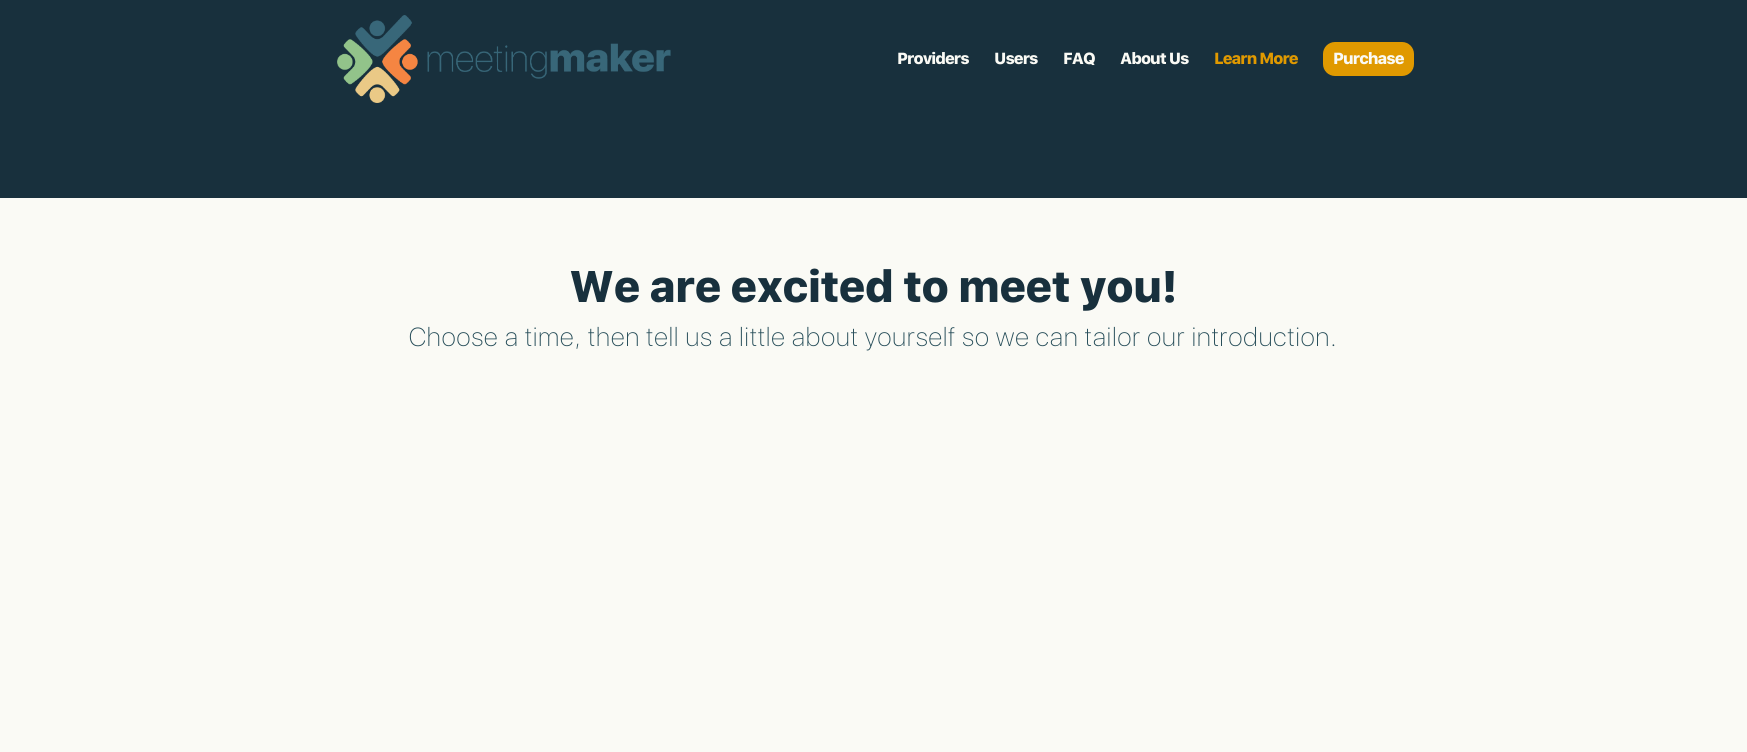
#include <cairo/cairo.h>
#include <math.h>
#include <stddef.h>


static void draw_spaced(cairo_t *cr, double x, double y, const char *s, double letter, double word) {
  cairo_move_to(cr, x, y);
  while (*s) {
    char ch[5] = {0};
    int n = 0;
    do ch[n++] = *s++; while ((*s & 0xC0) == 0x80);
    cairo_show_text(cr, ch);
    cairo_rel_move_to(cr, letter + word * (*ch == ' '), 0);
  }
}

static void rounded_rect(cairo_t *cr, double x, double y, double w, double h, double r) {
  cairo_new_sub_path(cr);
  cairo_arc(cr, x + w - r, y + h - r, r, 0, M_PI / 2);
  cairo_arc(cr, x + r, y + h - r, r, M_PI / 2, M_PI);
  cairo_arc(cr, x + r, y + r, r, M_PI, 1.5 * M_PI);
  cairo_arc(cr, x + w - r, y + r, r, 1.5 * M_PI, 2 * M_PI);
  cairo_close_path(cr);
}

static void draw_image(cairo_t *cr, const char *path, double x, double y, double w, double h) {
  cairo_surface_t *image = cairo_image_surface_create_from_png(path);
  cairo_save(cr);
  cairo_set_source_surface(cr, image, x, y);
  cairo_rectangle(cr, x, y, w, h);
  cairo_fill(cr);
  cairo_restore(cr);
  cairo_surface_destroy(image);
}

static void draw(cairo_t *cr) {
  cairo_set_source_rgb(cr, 24 / 255.0, 48 / 255.0, 61 / 255.0);
  cairo_paint(cr);
  draw_image(cr, "images/1.png", 337, 15, 334, 88);
  cairo_set_source_rgb(cr, 224 / 255.0, 153 / 255.0, 0);
  rounded_rect(cr, 1323, 42, 91, 34, 12);
  cairo_fill(cr);
  cairo_set_source_rgb(cr, 250 / 255.0, 250 / 255.0, 245 / 255.0);
  cairo_rectangle(cr, 0, 198, 1747, 554);
  cairo_fill(cr);
  cairo_select_font_face(cr, "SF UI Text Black", CAIRO_FONT_SLANT_NORMAL, CAIRO_FONT_WEIGHT_NORMAL);
  cairo_set_font_size(cr, 16);
  draw_spaced(cr, 897, 64, "Providers", -1, 0);
  draw_spaced(cr, 994, 64, "Users", -1, 0);
  draw_spaced(cr, 1063, 64, "FAQ", -1, 0);
  draw_spaced(cr, 1120, 64, "About Us", -1, 0);
  cairo_set_source_rgb(cr, 224 / 255.0, 153 / 255.0, 0);
  draw_spaced(cr, 1214, 64, "Learn More", -1, 0);
  cairo_set_source_rgb(cr, 250 / 255.0, 250 / 255.0, 245 / 255.0);
  draw_spaced(cr, 1333, 64, "Purchase", -1, 0);
  cairo_set_font_size(cr, 44);
  cairo_set_source_rgb(cr, 24 / 255.0, 48 / 255.0, 61 / 255.0);
  draw_spaced(cr, 569, 302, "We are excited to meet you!", -1, 0);
  cairo_select_font_face(cr, "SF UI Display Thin", CAIRO_FONT_SLANT_NORMAL, CAIRO_FONT_WEIGHT_NORMAL);
  cairo_set_font_size(cr, 26);
  cairo_set_source_rgb(cr, 37 / 255.0, 76 / 255.0, 88 / 255.0);
  draw_spaced(cr, 409, 346, "Choose a time, then tell us a little about yourself so we can tailor our introduction.", 1, 0);
}

int main(void) {
  cairo_surface_t *surface = cairo_image_surface_create(CAIRO_FORMAT_RGB24, 1747, 752);
  cairo_t *cr = cairo_create(surface);
  cairo_font_options_t *options = cairo_font_options_create();
  cairo_font_options_set_hint_metrics(options, CAIRO_HINT_METRICS_OFF);
  cairo_font_options_set_hint_style(options, CAIRO_HINT_STYLE_NONE);
  cairo_set_font_options(cr, options);
  cairo_set_miter_limit(cr, 4);
  draw(cr);
  cairo_surface_write_to_png(surface, "out.png");
  cairo_font_options_destroy(options);
  cairo_destroy(cr);
  cairo_surface_destroy(surface);
  return 0;
}
